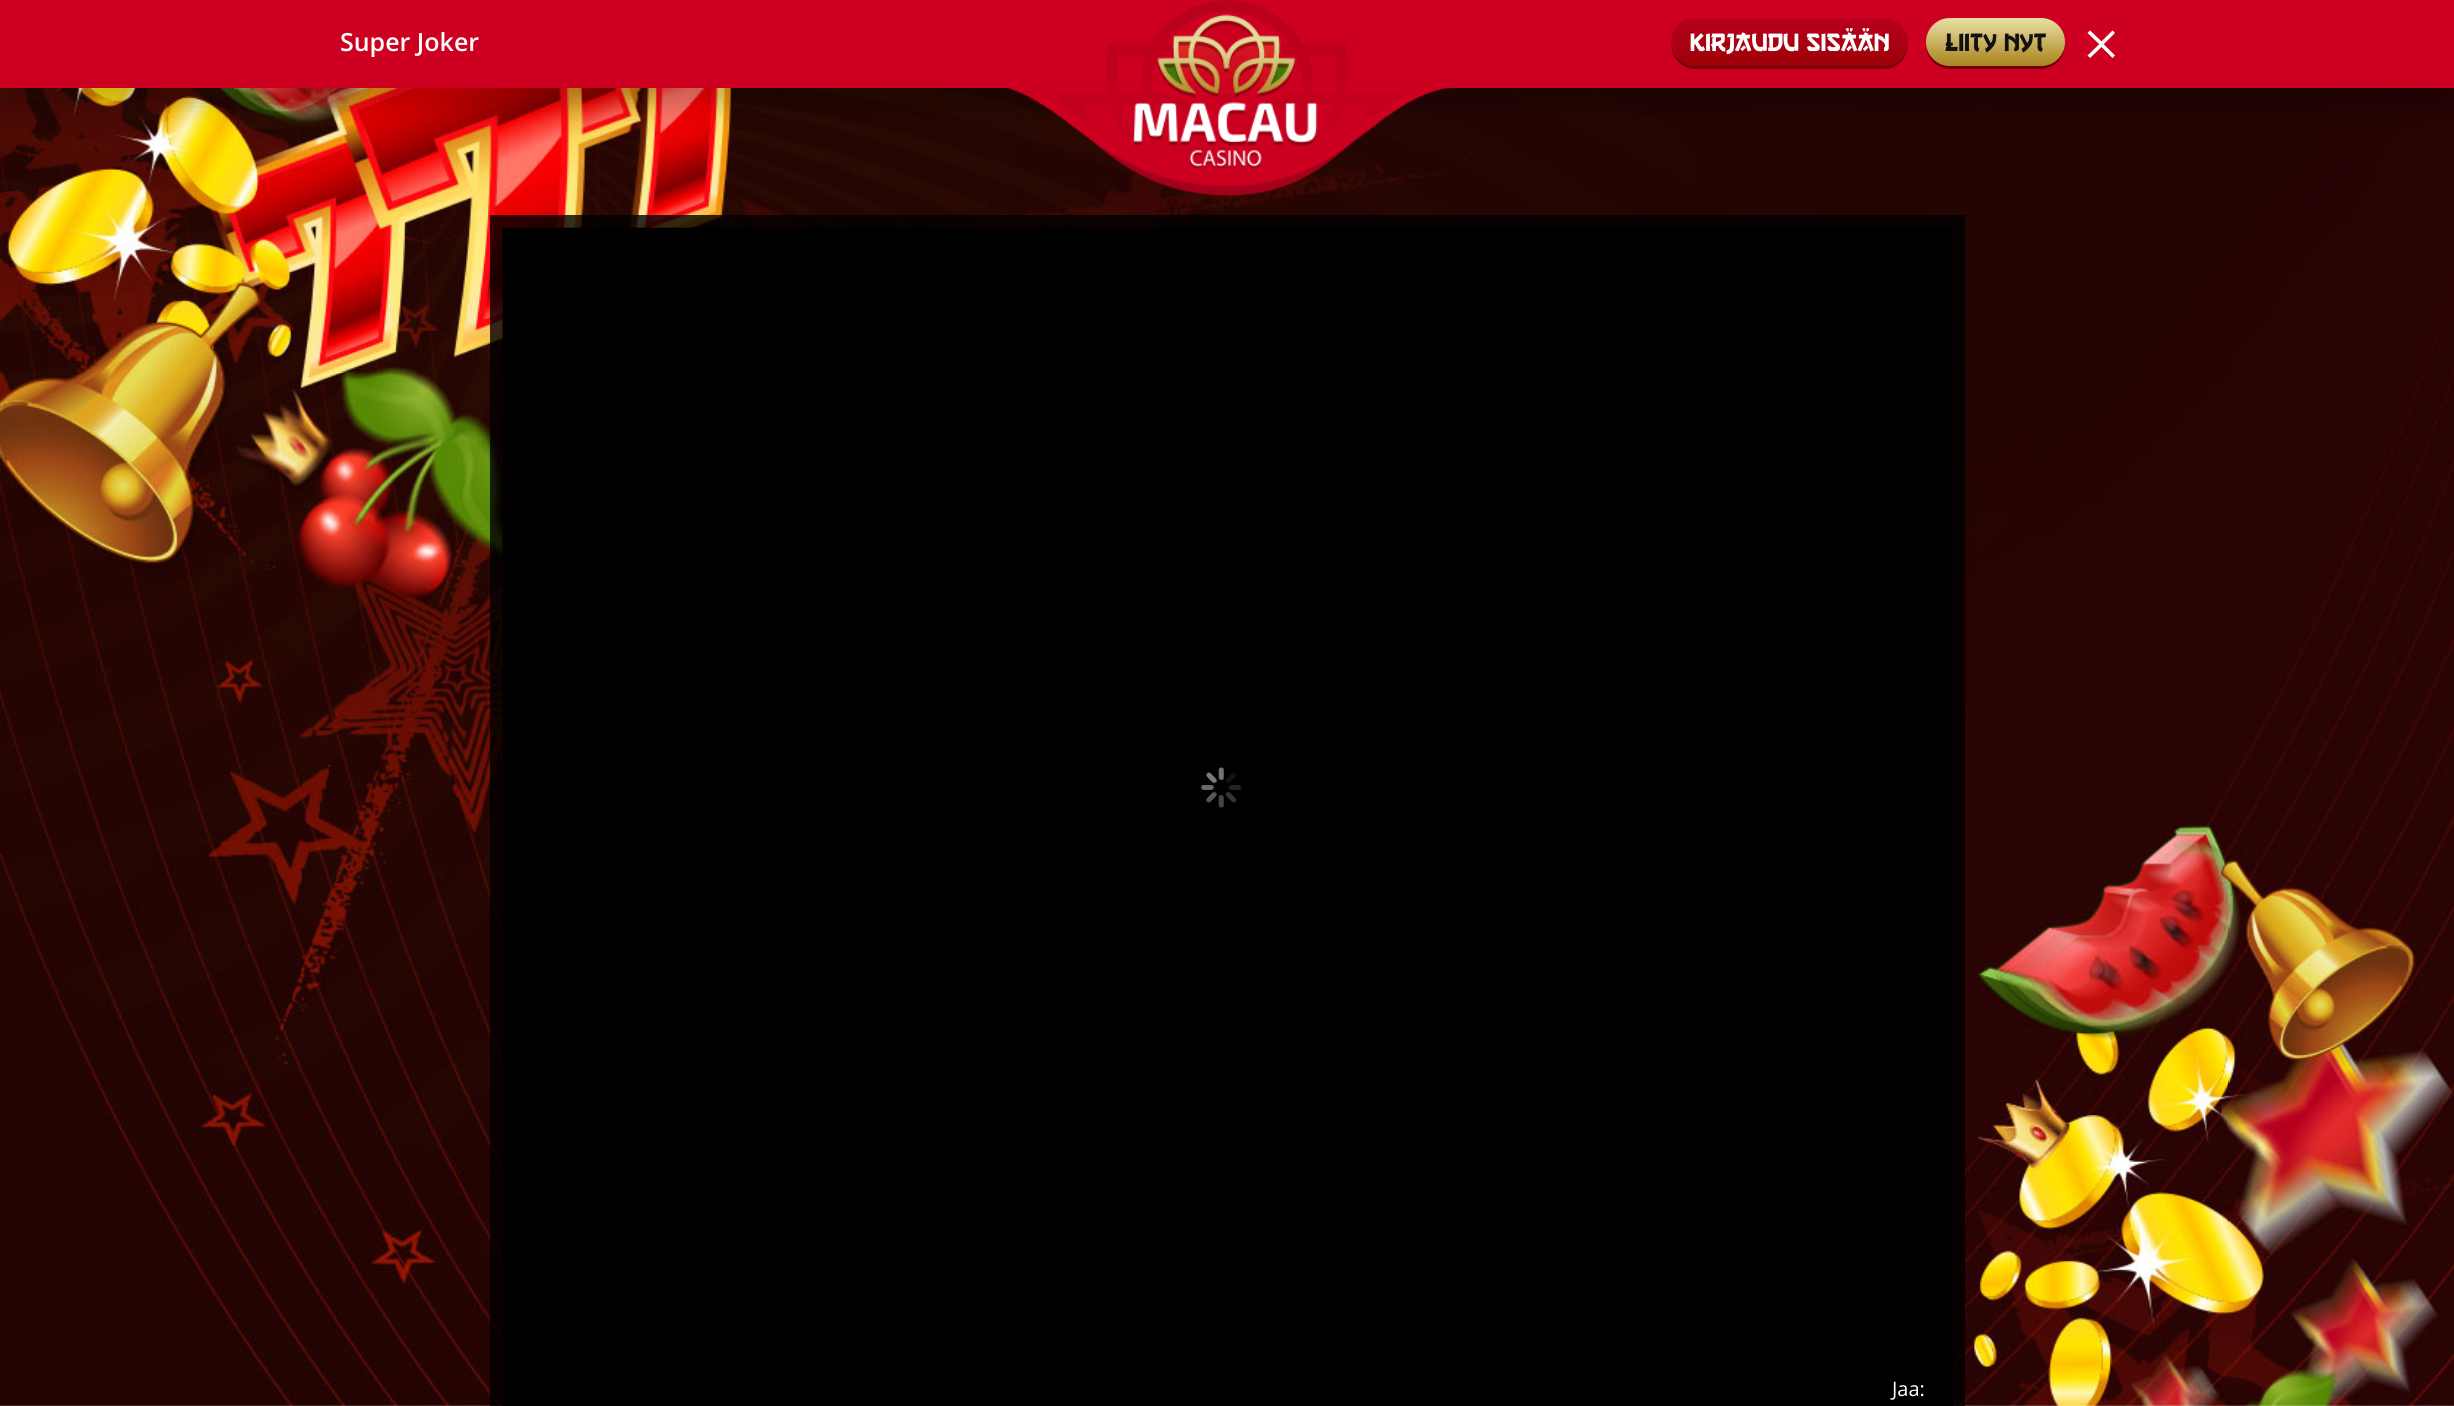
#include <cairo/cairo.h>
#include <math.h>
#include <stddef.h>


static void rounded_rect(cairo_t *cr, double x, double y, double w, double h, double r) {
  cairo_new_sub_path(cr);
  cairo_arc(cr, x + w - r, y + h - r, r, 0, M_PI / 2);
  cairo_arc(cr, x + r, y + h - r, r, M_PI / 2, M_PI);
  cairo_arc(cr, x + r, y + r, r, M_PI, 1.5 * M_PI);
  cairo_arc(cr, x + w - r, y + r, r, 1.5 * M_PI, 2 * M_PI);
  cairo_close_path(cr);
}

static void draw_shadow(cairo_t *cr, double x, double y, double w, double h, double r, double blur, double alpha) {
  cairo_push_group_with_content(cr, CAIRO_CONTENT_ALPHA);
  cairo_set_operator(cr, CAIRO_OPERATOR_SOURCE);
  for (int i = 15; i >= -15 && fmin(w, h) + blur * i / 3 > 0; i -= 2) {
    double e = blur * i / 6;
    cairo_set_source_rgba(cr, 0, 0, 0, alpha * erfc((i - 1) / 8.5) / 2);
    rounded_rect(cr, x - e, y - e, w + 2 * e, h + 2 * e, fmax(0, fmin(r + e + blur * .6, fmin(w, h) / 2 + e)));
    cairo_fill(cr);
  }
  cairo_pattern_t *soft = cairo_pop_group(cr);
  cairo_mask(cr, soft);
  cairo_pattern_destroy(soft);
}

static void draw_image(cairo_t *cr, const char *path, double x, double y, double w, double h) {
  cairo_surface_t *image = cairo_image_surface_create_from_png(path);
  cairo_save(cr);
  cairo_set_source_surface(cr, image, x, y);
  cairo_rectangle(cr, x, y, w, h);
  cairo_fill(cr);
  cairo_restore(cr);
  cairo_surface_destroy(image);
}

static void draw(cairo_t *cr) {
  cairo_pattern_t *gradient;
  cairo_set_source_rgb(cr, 1, 1, 1);
  cairo_paint(cr);
  draw_image(cr, "images/1.png", 0, 1405, 2454, 1);
  draw_image(cr, "images/2.png", 0, 88, 2454, 1318);
  cairo_set_source_rgb(cr, 0, 0, 0);
  draw_shadow(cr, 0, 19, 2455, 87, 0, 12.5, 0.2);
  cairo_set_source_rgb(cr, 205 / 255.0, 0, 33 / 255.0);
  cairo_rectangle(cr, 0, 0, 2454, 88);
  cairo_fill(cr);
  draw_image(cr, "images/3.png", 2087, 30, 28, 28);
  draw_image(cr, "images/5.png", 1006, 88, 445, 109);
  draw_image(cr, "images/4.png", 1054, 0, 347, 175);
  cairo_set_source_rgb(cr, 115 / 255.0, 0, 19 / 255.0);
  cairo_new_path(cr);
  cairo_move_to(cr, 1671, 41);
  cairo_line_to(cr, 1671, 44);
  cairo_curve_to(cr, 1671, 58, 1682, 69, 1696, 69);
  cairo_line_to(cr, 1884, 69);
  cairo_curve_to(cr, 1897, 69, 1908, 58, 1908, 44);
  cairo_line_to(cr, 1907, 39);
  cairo_line_to(cr, 1908, 42);
  cairo_curve_to(cr, 1908, 55, 1897, 66, 1883, 66);
  cairo_line_to(cr, 1696, 66);
  cairo_curve_to(cr, 1682, 66, 1671, 55, 1671, 42);
  cairo_close_path(cr);
  cairo_fill(cr);
  gradient = cairo_pattern_create_linear(1789, 17, 1789, 66);
  cairo_pattern_add_color_stop_rgba(gradient, 0, 184 / 255.0, 0, 29 / 255.0, 1);
  cairo_pattern_add_color_stop_rgba(gradient, 1, 157 / 255.0, 1 / 255.0, 7 / 255.0, 1);
  cairo_set_source(cr, gradient);
  cairo_pattern_destroy(gradient);
  rounded_rect(cr, 1671, 18, 237, 48, 24);
  cairo_fill(cr);
  cairo_set_source_rgb(cr, 112 / 255.0, 0, 3 / 255.0);
  cairo_new_path(cr);
  cairo_move_to(cr, 1926, 41);
  cairo_line_to(cr, 1926, 44);
  cairo_curve_to(cr, 1926, 58, 1937, 69, 1950, 69);
  cairo_line_to(cr, 2040, 69);
  cairo_curve_to(cr, 2054, 69, 2065, 58, 2065, 44);
  cairo_line_to(cr, 2065, 43);
  cairo_curve_to(cr, 2064, 56, 2054, 66, 2041, 66);
  cairo_line_to(cr, 1951, 66);
  cairo_curve_to(cr, 1937, 66, 1926, 55, 1926, 42);
  cairo_close_path(cr);
  cairo_fill(cr);
  gradient = cairo_pattern_create_linear(1996, 17, 1996, 66);
  cairo_pattern_add_color_stop_rgba(gradient, 0, 230 / 255.0, 222 / 255.0, 160 / 255.0, 0.94);
  cairo_pattern_add_color_stop_rgba(gradient, 0.02, 229 / 255.0, 221 / 255.0, 158 / 255.0, 1);
  cairo_pattern_add_color_stop_rgba(gradient, 0.12, 225 / 255.0, 215 / 255.0, 150 / 255.0, 1);
  cairo_pattern_add_color_stop_rgba(gradient, 0.24, 219 / 255.0, 205 / 255.0, 136 / 255.0, 1);
  cairo_pattern_add_color_stop_rgba(gradient, 0.76, 185 / 255.0, 153 / 255.0, 60 / 255.0, 1);
  cairo_pattern_add_color_stop_rgba(gradient, 0.93, 175 / 255.0, 139 / 255.0, 41 / 255.0, 1);
  cairo_pattern_add_color_stop_rgba(gradient, 1, 173 / 255.0, 135 / 255.0, 35 / 255.0, 1);
  cairo_set_source(cr, gradient);
  cairo_pattern_destroy(gradient);
  rounded_rect(cr, 1926, 18, 139, 48, 24);
  cairo_fill(cr);
  cairo_set_source_rgba(cr, 0, 0, 0, 0.8);
  cairo_rectangle(cr, 490, 215, 1475, 1191);
  cairo_fill(cr);
  draw_image(cr, "images/6.png", 502, 227, 1451, 1126);
  cairo_set_source_rgb(cr, 0, 0, 0);
  cairo_rectangle(cr, 503, 1353, 1450, 53);
  cairo_fill(cr);
  cairo_select_font_face(cr, "Open Sans SemiBold", CAIRO_FONT_SLANT_NORMAL, CAIRO_FONT_WEIGHT_NORMAL);
  cairo_set_font_size(cr, 25);
  cairo_set_source_rgb(cr, 1, 1, 1);
  cairo_move_to(cr, 340, 51);
  cairo_show_text(cr, "Super Joker");
  cairo_select_font_face(cr, "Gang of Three", CAIRO_FONT_SLANT_NORMAL, CAIRO_FONT_WEIGHT_NORMAL);
  cairo_set_font_size(cr, 26.25);
  cairo_move_to(cr, 1690, 51);
  cairo_show_text(cr, "Kirjaudu sisään");
  cairo_set_source_rgb(cr, 17 / 255.0, 17 / 255.0, 17 / 255.0);
  cairo_move_to(cr, 1945, 51);
  cairo_show_text(cr, "Liity nyt");
  cairo_select_font_face(cr, "Open Sans", CAIRO_FONT_SLANT_NORMAL, CAIRO_FONT_WEIGHT_NORMAL);
  cairo_set_font_size(cr, 20);
  cairo_set_source_rgb(cr, 1, 1, 1);
  cairo_move_to(cr, 1892, 1396);
  cairo_show_text(cr, "Jaa:");
}

int main(void) {
  cairo_surface_t *surface = cairo_image_surface_create(CAIRO_FORMAT_RGB24, 2454, 1406);
  cairo_t *cr = cairo_create(surface);
  cairo_font_options_t *options = cairo_font_options_create();
  cairo_font_options_set_hint_metrics(options, CAIRO_HINT_METRICS_OFF);
  cairo_font_options_set_hint_style(options, CAIRO_HINT_STYLE_NONE);
  cairo_set_font_options(cr, options);
  cairo_set_miter_limit(cr, 4);
  draw(cr);
  cairo_surface_write_to_png(surface, "out.png");
  cairo_font_options_destroy(options);
  cairo_destroy(cr);
  cairo_surface_destroy(surface);
  return 0;
}
